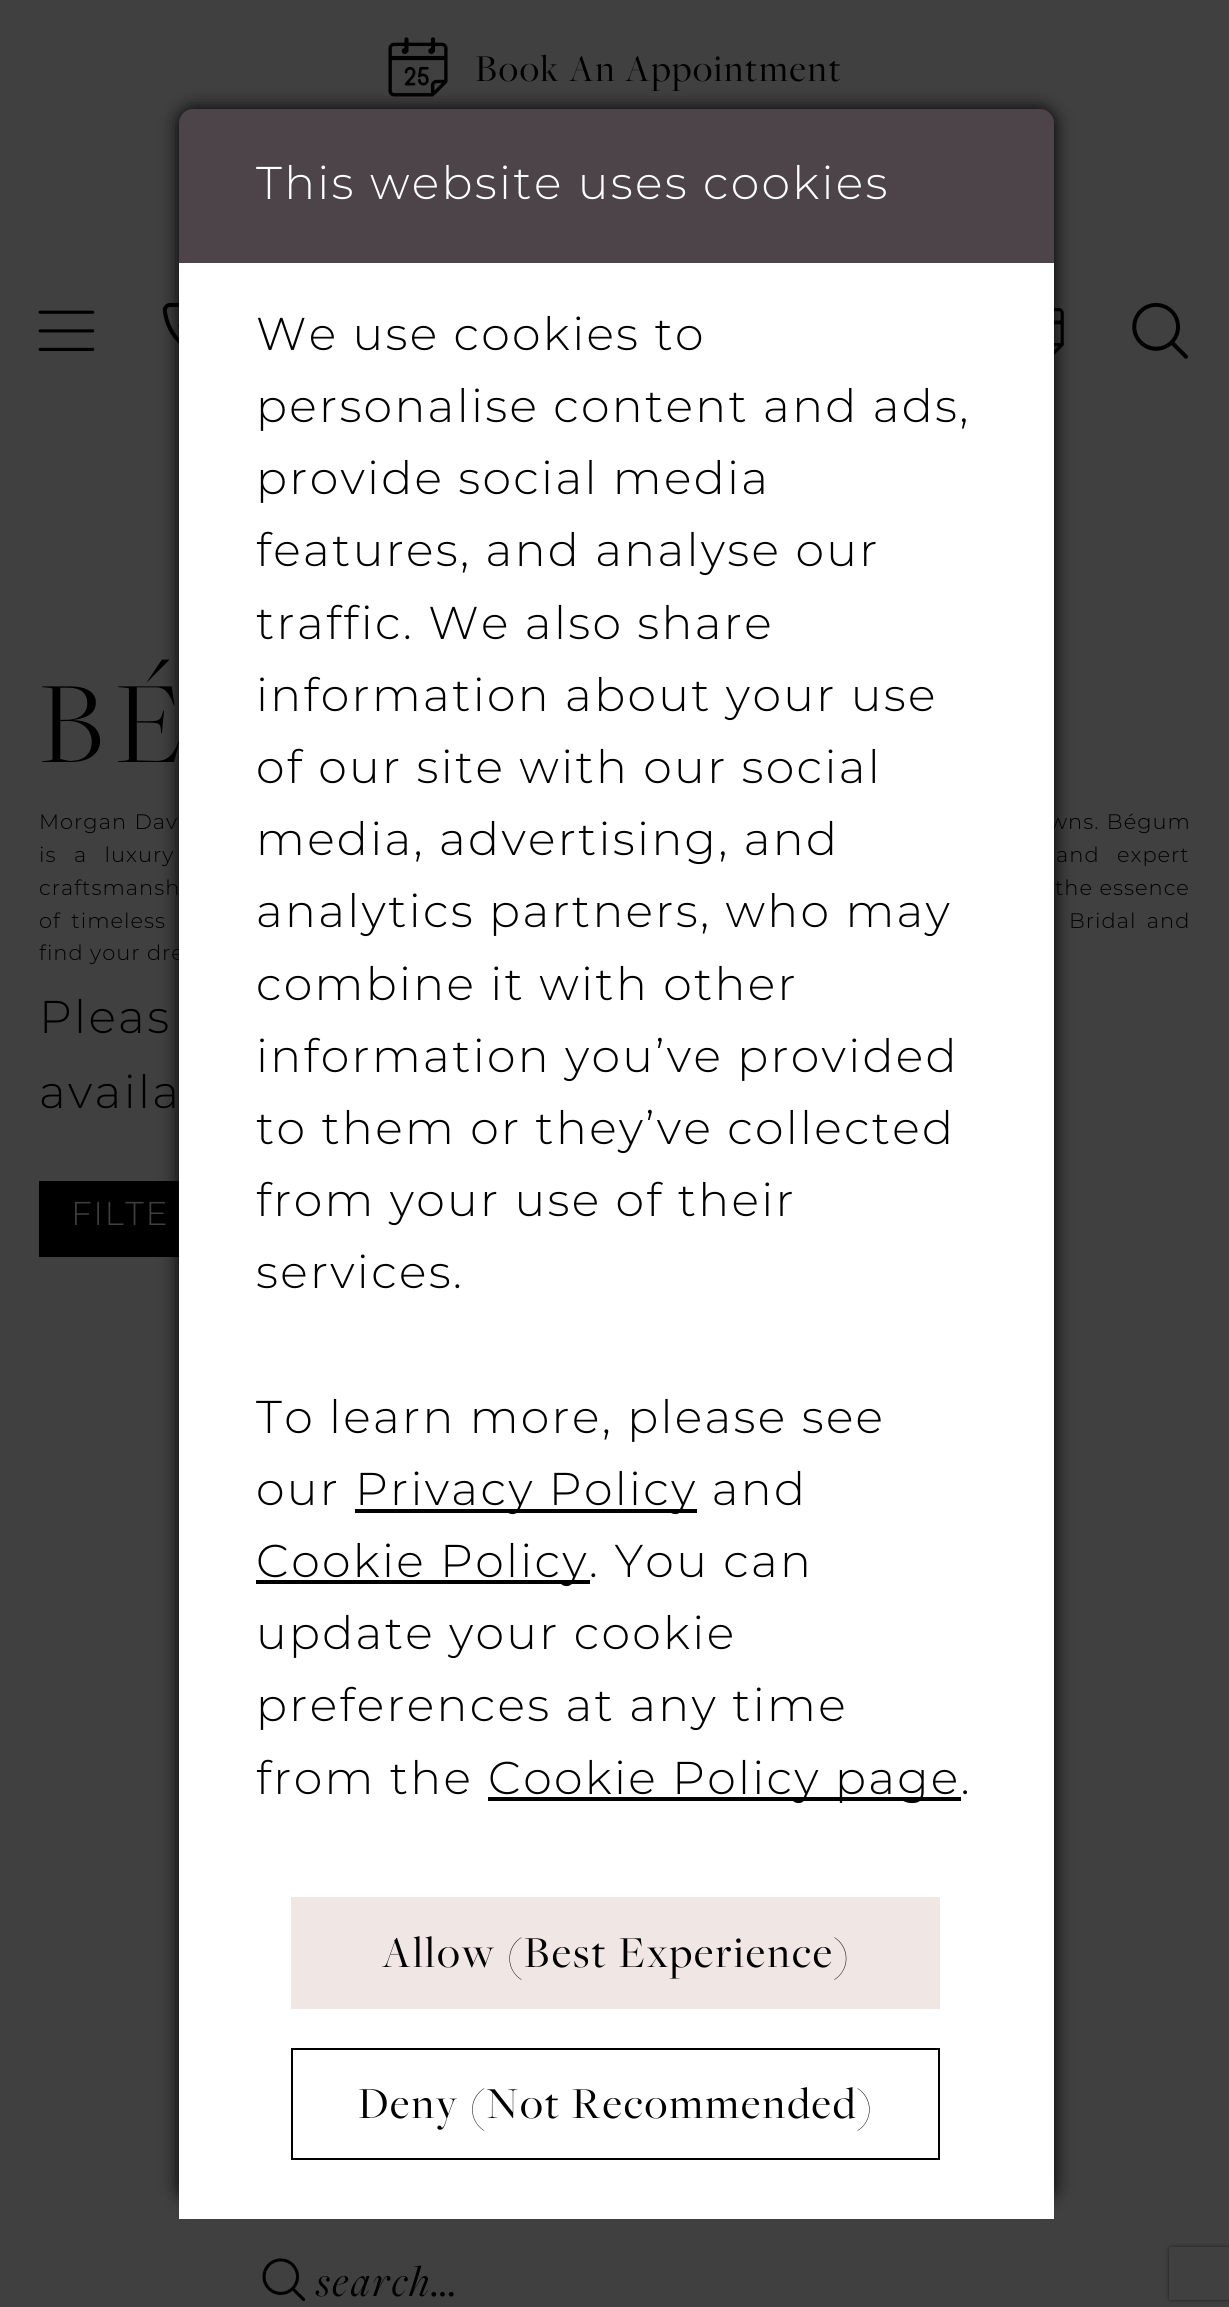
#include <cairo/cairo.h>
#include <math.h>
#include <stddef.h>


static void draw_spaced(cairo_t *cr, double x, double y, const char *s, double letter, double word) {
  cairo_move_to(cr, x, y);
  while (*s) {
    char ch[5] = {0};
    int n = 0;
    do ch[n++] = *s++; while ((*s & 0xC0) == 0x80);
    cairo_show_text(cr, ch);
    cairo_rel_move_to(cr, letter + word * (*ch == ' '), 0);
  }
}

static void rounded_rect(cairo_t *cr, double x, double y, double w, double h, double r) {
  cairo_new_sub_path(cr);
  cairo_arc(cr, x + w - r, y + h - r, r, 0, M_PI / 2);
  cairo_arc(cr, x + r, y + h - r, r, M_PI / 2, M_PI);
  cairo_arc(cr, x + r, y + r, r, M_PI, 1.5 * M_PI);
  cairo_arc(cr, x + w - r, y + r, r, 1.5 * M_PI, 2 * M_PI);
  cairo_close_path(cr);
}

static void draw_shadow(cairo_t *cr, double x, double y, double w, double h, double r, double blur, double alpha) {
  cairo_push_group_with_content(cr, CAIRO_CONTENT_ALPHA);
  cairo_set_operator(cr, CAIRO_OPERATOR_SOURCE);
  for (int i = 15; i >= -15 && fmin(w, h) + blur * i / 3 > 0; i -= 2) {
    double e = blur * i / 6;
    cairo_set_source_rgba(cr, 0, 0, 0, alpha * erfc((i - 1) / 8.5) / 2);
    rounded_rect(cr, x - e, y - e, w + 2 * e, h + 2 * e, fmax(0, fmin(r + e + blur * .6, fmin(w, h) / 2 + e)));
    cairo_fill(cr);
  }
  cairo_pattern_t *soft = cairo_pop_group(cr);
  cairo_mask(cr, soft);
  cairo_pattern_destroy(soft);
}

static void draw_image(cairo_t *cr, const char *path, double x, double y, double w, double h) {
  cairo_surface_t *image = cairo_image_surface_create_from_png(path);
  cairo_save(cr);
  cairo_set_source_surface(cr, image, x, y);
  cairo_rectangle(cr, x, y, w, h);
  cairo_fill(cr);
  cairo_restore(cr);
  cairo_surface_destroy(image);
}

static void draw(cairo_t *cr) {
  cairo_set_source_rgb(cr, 64 / 255.0, 64 / 255.0, 64 / 255.0);
  cairo_paint(cr);
  draw_image(cr, "images/1.png", 388, 37, 60, 60);
  draw_image(cr, "images/2.png", 38, 310, 57, 41);
  draw_image(cr, "images/3.png", 162, 302, 17, 42);
  draw_image(cr, "images/4.png", 1054, 308, 10, 47);
  draw_image(cr, "images/5.png", 1132, 303, 56, 56);
  cairo_set_source_rgb(cr, 0, 0, 0);
  cairo_rectangle(cr, 39, 1181, 140, 76);
  cairo_fill(cr);
  draw_image(cr, "images/6.png", 262, 2258, 44, 44);
  cairo_set_source_rgb(cr, 0, 0, 0);
  draw_shadow(cr, 179, 109, 875, 2091, 14, 9, 1);
  cairo_set_source_rgb(cr, 76 / 255.0, 68 / 255.0, 73 / 255.0);
  cairo_new_path(cr);
  cairo_move_to(cr, 193, 109);
  cairo_line_to(cr, 1040, 109);
  cairo_curve_to(cr, 1047.5, 109, 1054, 115.5, 1054, 123);
  cairo_line_to(cr, 1054, 263);
  cairo_line_to(cr, 179, 263);
  cairo_line_to(cr, 179, 123);
  cairo_curve_to(cr, 179, 115.5, 185.5, 109, 193, 109);
  cairo_close_path(cr);
  cairo_fill(cr);
  cairo_save(cr);
  cairo_set_fill_rule(cr, CAIRO_FILL_RULE_EVEN_ODD);
  cairo_new_path(cr);
  cairo_move_to(cr, 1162, 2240);
  cairo_line_to(cr, 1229, 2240);
  cairo_line_to(cr, 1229, 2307);
  cairo_line_to(cr, 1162, 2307);
  cairo_close_path(cr);
  cairo_move_to(cr, 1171, 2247);
  cairo_line_to(cr, 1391, 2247);
  cairo_curve_to(cr, 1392, 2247, 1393, 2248, 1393, 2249);
  cairo_line_to(cr, 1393, 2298);
  cairo_curve_to(cr, 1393, 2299, 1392, 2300, 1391, 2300);
  cairo_line_to(cr, 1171, 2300);
  cairo_curve_to(cr, 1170, 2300, 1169, 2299, 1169, 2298);
  cairo_line_to(cr, 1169, 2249);
  cairo_curve_to(cr, 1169, 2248, 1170, 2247, 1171, 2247);
  cairo_close_path(cr);
  cairo_clip(cr);
  cairo_set_source_rgb(cr, 32 / 255.0, 32 / 255.0, 32 / 255.0);
  draw_shadow(cr, 1169, 2247, 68, 53, 2, 2, 1);
  cairo_restore(cr);
  cairo_select_font_face(cr, "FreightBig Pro", CAIRO_FONT_SLANT_NORMAL, CAIRO_FONT_WEIGHT_NORMAL);
  cairo_set_font_size(cr, 39.4);
  cairo_set_source_rgb(cr, 0, 0, 0);
  draw_spaced(cr, 475, 81, "Book An Appointment", 1.7, 0);
  cairo_select_font_face(cr, "FreightBig Pro Light", CAIRO_FONT_SLANT_NORMAL, CAIRO_FONT_WEIGHT_NORMAL);
  cairo_set_font_size(cr, 121);
  draw_spaced(cr, 39, 762, "BÉ", 11, 0);
  cairo_select_font_face(cr, "Montserrat Light", CAIRO_FONT_SLANT_NORMAL, CAIRO_FONT_WEIGHT_NORMAL);
  cairo_set_font_size(cr, 21);
  draw_spaced(cr, 39, 829, "Morgan Dav", 1, 1);
  draw_spaced(cr, 1049, 829, "wns. Bégum", 1, 1);
  draw_spaced(cr, 39, 862, "is a luxury", 1, 11);
  draw_spaced(cr, 1056, 862, "and expert", 1, 11);
  draw_spaced(cr, 39, 895, "craftsmansh", 1, 0);
  draw_spaced(cr, 1055, 895, "the essence", 1, 0);
  draw_spaced(cr, 39, 928, "of timeless", 1, 4);
  draw_spaced(cr, 1069, 928, "Bridal and", 1, 4);
  draw_spaced(cr, 39, 960, "find your dre", 1, 0);
  cairo_set_font_size(cr, 45.9);
  draw_spaced(cr, 39, 1033, "Pleas", 2.3, 0);
  draw_spaced(cr, 39, 1108, "availa", 2.3, 0);
  cairo_set_font_size(cr, 33);
  cairo_set_source_rgb(cr, 64 / 255.0, 64 / 255.0, 64 / 255.0);
  draw_spaced(cr, 71, 1225, "FILTE", 1.5, 0);
  cairo_select_font_face(cr, "FreightBig Pro", CAIRO_FONT_SLANT_ITALIC, CAIRO_FONT_WEIGHT_NORMAL);
  cairo_set_font_size(cr, 45.9);
  cairo_set_source_rgb(cr, 0, 0, 0);
  draw_spaced(cr, 316, 2296, "search…", 2.5, 0);
  cairo_select_font_face(cr, "Montserrat Light", CAIRO_FONT_SLANT_NORMAL, CAIRO_FONT_WEIGHT_NORMAL);
  cairo_set_source_rgb(cr, 1, 1, 1);
  draw_spaced(cr, 256, 199, "This website uses cookies", 2.3, 0);
  cairo_rectangle(cr, 179, 263, 875, 1956);
  cairo_fill(cr);
  cairo_set_source_rgb(cr, 0, 0, 0);
  draw_spaced(cr, 256, 350, "We use cookies to", 2.3, 0);
  draw_spaced(cr, 256, 422, "personalise content and ads,", 2.3, 0);
  draw_spaced(cr, 256, 494, "provide social media", 2.3, 0);
  draw_spaced(cr, 256, 566, "features, and analyse our", 2.3, 0);
  draw_spaced(cr, 256, 639, "traffic. We also share", 2.3, 0);
  draw_spaced(cr, 256, 711, "information about your use", 2.3, 0);
  draw_spaced(cr, 256, 783, "of our site with our social", 2.3, 0);
  draw_spaced(cr, 256, 855, "media, advertising, and", 2.3, 0);
  draw_spaced(cr, 256, 927, "analytics partners, who may", 2.3, 0);
  draw_spaced(cr, 256, 1000, "combine it with other", 2.3, 0);
  draw_spaced(cr, 256, 1072, "information you’ve provided", 2.3, 0);
  draw_spaced(cr, 256, 1144, "to them or they’ve collected", 2.3, 0);
  draw_spaced(cr, 256, 1216, "from your use of their", 2.3, 0);
  draw_spaced(cr, 256, 1288, "services.", 2.3, 0);
  draw_spaced(cr, 256, 1433, "To learn more, please see", 2.3, 0);
  draw_spaced(cr, 256, 1505, "our", 2.3, 0);
  cairo_rectangle(cr, 355, 1509, 342, 4);
  cairo_fill(cr);
  draw_spaced(cr, 355, 1505, "Privacy Policy and", 2.3, 0);
  cairo_rectangle(cr, 256, 1580, 334, 4);
  cairo_fill(cr);
  draw_spaced(cr, 256, 1577, "Cookie Policy. You can", 2.3, 0);
  draw_spaced(cr, 256, 1649, "update your cookie", 2.3, 0);
  draw_spaced(cr, 256, 1721, "preferences at any time", 2.3, 0);
  draw_spaced(cr, 256, 1794, "from the", 2.3, 0);
  cairo_rectangle(cr, 488, 1797, 473, 4);
  cairo_fill(cr);
  draw_spaced(cr, 488, 1794, "Cookie Policy page.", 2.3, 0);
  cairo_set_source_rgb(cr, 240 / 255.0, 231 / 255.0, 229 / 255.0);
  cairo_rectangle(cr, 291, 1897, 649, 112);
  cairo_fill(cr);
  cairo_select_font_face(cr, "FreightBig Pro", CAIRO_FONT_SLANT_NORMAL, CAIRO_FONT_WEIGHT_NORMAL);
  cairo_set_source_rgb(cr, 0, 0, 0);
  draw_spaced(cr, 382, 1967, "Allow (Best Experience)", 2.3, 0);
  cairo_rectangle(cr, 292, 2049, 647, 110);
  cairo_stroke(cr);
  draw_spaced(cr, 358, 2118, "Deny (Not Recommended)", 2.3, 0);
}

int main(void) {
  cairo_surface_t *surface = cairo_image_surface_create(CAIRO_FORMAT_RGB24, 1229, 2307);
  cairo_t *cr = cairo_create(surface);
  cairo_font_options_t *options = cairo_font_options_create();
  cairo_font_options_set_hint_metrics(options, CAIRO_HINT_METRICS_OFF);
  cairo_font_options_set_hint_style(options, CAIRO_HINT_STYLE_NONE);
  cairo_set_font_options(cr, options);
  cairo_set_miter_limit(cr, 4);
  draw(cr);
  cairo_surface_write_to_png(surface, "out.png");
  cairo_font_options_destroy(options);
  cairo_destroy(cr);
  cairo_surface_destroy(surface);
  return 0;
}
